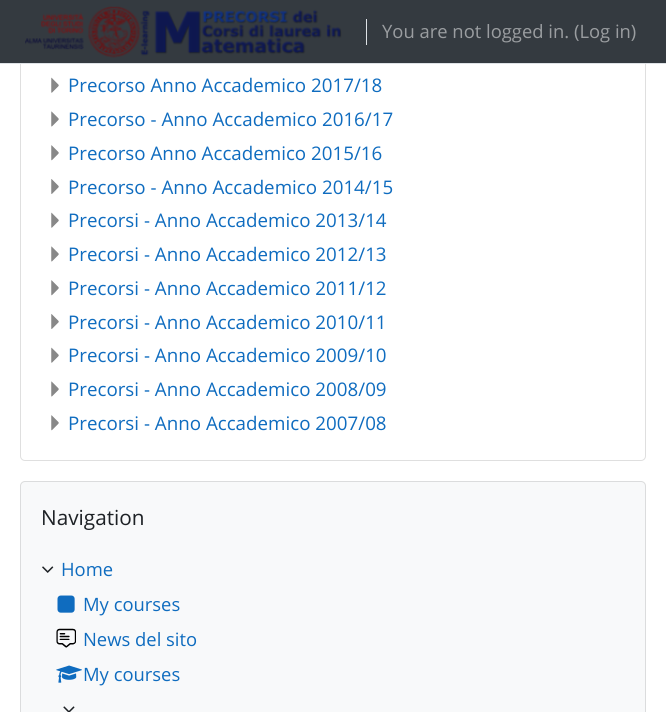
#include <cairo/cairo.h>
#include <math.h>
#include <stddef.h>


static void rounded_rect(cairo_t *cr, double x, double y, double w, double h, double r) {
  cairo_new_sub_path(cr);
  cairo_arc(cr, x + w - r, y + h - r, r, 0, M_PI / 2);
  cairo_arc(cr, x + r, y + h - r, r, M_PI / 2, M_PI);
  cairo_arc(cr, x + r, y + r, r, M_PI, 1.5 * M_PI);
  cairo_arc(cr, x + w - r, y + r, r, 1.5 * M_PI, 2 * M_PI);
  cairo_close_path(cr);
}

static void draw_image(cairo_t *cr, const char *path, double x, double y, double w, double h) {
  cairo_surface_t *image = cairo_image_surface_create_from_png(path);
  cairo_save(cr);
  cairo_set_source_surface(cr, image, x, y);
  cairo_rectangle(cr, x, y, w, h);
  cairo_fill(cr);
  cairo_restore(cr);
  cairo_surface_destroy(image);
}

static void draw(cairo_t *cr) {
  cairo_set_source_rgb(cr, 1, 1, 1);
  cairo_paint(cr);
  rounded_rect(cr, 20.5, -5.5, 625, 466, 4.5);
  cairo_set_source_rgb(cr, 223 / 255.0, 223 / 255.0, 223 / 255.0);
  cairo_set_line_width(cr, 1);
  cairo_stroke(cr);
  cairo_set_source_rgb(cr, 52 / 255.0, 58 / 255.0, 64 / 255.0);
  cairo_rectangle(cr, 0, 0, 666, 63);
  cairo_fill(cr);
  cairo_set_source_rgb(cr, 222 / 255.0, 226 / 255.0, 230 / 255.0);
  cairo_rectangle(cr, 0, 63, 666, 1);
  cairo_fill(cr);
  draw_image(cr, "images/1.png", 25, 6, 317, 52);
  cairo_rectangle(cr, 366, 19, 1, 26);
  cairo_fill(cr);
  draw_image(cr, "images/2.png", 51, 77, 8, 16);
  draw_image(cr, "images/3.png", 51, 111, 8, 16);
  draw_image(cr, "images/4.png", 51, 145, 8, 16);
  draw_image(cr, "images/5.png", 51, 179, 8, 15);
  draw_image(cr, "images/2.png", 51, 212, 8, 16);
  draw_image(cr, "images/3.png", 51, 246, 8, 16);
  draw_image(cr, "images/4.png", 51, 280, 8, 16);
  draw_image(cr, "images/5.png", 51, 314, 8, 15);
  draw_image(cr, "images/6.png", 51, 347, 8, 16);
  draw_image(cr, "images/3.png", 51, 381, 8, 16);
  draw_image(cr, "images/4.png", 51, 415, 8, 16);
  cairo_set_source_rgb(cr, 248 / 255.0, 249 / 255.0, 250 / 255.0);
  rounded_rect(cr, 20, 481, 626, 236, 5);
  cairo_fill(cr);
  rounded_rect(cr, 20.5, 481.5, 625, 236, 4.5);
  cairo_set_source_rgba(cr, 0, 0, 0, 0.12);
  cairo_stroke(cr);
  draw_image(cr, "images/7.png", 42, 566, 12, 7);
  draw_image(cr, "images/8.png", 57, 595, 18, 18);
  draw_image(cr, "images/9.png", 56, 628, 20, 20);
  draw_image(cr, "images/10.png", 56, 665, 26, 18);
  draw_image(cr, "images/11.png", 63, 706, 12, 6);
  cairo_select_font_face(cr, "Open Sans", CAIRO_FONT_SLANT_NORMAL, CAIRO_FONT_WEIGHT_NORMAL);
  cairo_set_font_size(cr, 18.4);
  cairo_set_source_rgb(cr, 154 / 255.0, 157 / 255.0, 160 / 255.0);
  cairo_move_to(cr, 382, 38);
  cairo_show_text(cr, "You are not logged in. (Log in)");
  cairo_set_font_size(cr, 18.75);
  cairo_set_source_rgb(cr, 15 / 255.0, 108 / 255.0, 191 / 255.0);
  cairo_move_to(cr, 68, 92);
  cairo_show_text(cr, "Precorso Anno Accademico 2017/18");
  cairo_move_to(cr, 68, 126);
  cairo_show_text(cr, "Precorso - Anno Accademico 2016/17");
  cairo_move_to(cr, 68, 160);
  cairo_show_text(cr, "Precorso Anno Accademico 2015/16");
  cairo_move_to(cr, 68, 194);
  cairo_show_text(cr, "Precorso - Anno Accademico 2014/15");
  cairo_move_to(cr, 68, 227);
  cairo_show_text(cr, "Precorsi - Anno Accademico 2013/14");
  cairo_move_to(cr, 68, 261);
  cairo_show_text(cr, "Precorsi - Anno Accademico 2012/13");
  cairo_move_to(cr, 68, 295);
  cairo_show_text(cr, "Precorsi - Anno Accademico 2011/12");
  cairo_move_to(cr, 68, 329);
  cairo_show_text(cr, "Precorsi - Anno Accademico 2010/11");
  cairo_move_to(cr, 68, 362);
  cairo_show_text(cr, "Precorsi - Anno Accademico 2009/10");
  cairo_move_to(cr, 68, 396);
  cairo_show_text(cr, "Precorsi - Anno Accademico 2008/09");
  cairo_move_to(cr, 68, 430);
  cairo_show_text(cr, "Precorsi - Anno Accademico 2007/08");
  cairo_set_font_size(cr, 20.75);
  cairo_set_source_rgb(cr, 29 / 255.0, 33 / 255.0, 37 / 255.0);
  cairo_move_to(cr, 41, 525);
  cairo_show_text(cr, "Navigation");
  cairo_set_font_size(cr, 18.4);
  cairo_set_source_rgb(cr, 15 / 255.0, 108 / 255.0, 191 / 255.0);
  cairo_move_to(cr, 61, 576);
  cairo_show_text(cr, "Home");
  cairo_move_to(cr, 83, 611);
  cairo_show_text(cr, "My courses");
  cairo_move_to(cr, 83, 646);
  cairo_show_text(cr, "News del sito");
  cairo_move_to(cr, 83, 681);
  cairo_show_text(cr, "My courses");
}

int main(void) {
  cairo_surface_t *surface = cairo_image_surface_create(CAIRO_FORMAT_RGB24, 666, 712);
  cairo_t *cr = cairo_create(surface);
  cairo_font_options_t *options = cairo_font_options_create();
  cairo_font_options_set_hint_metrics(options, CAIRO_HINT_METRICS_OFF);
  cairo_font_options_set_hint_style(options, CAIRO_HINT_STYLE_NONE);
  cairo_set_font_options(cr, options);
  cairo_set_miter_limit(cr, 4);
  draw(cr);
  cairo_surface_write_to_png(surface, "out.png");
  cairo_font_options_destroy(options);
  cairo_destroy(cr);
  cairo_surface_destroy(surface);
  return 0;
}
